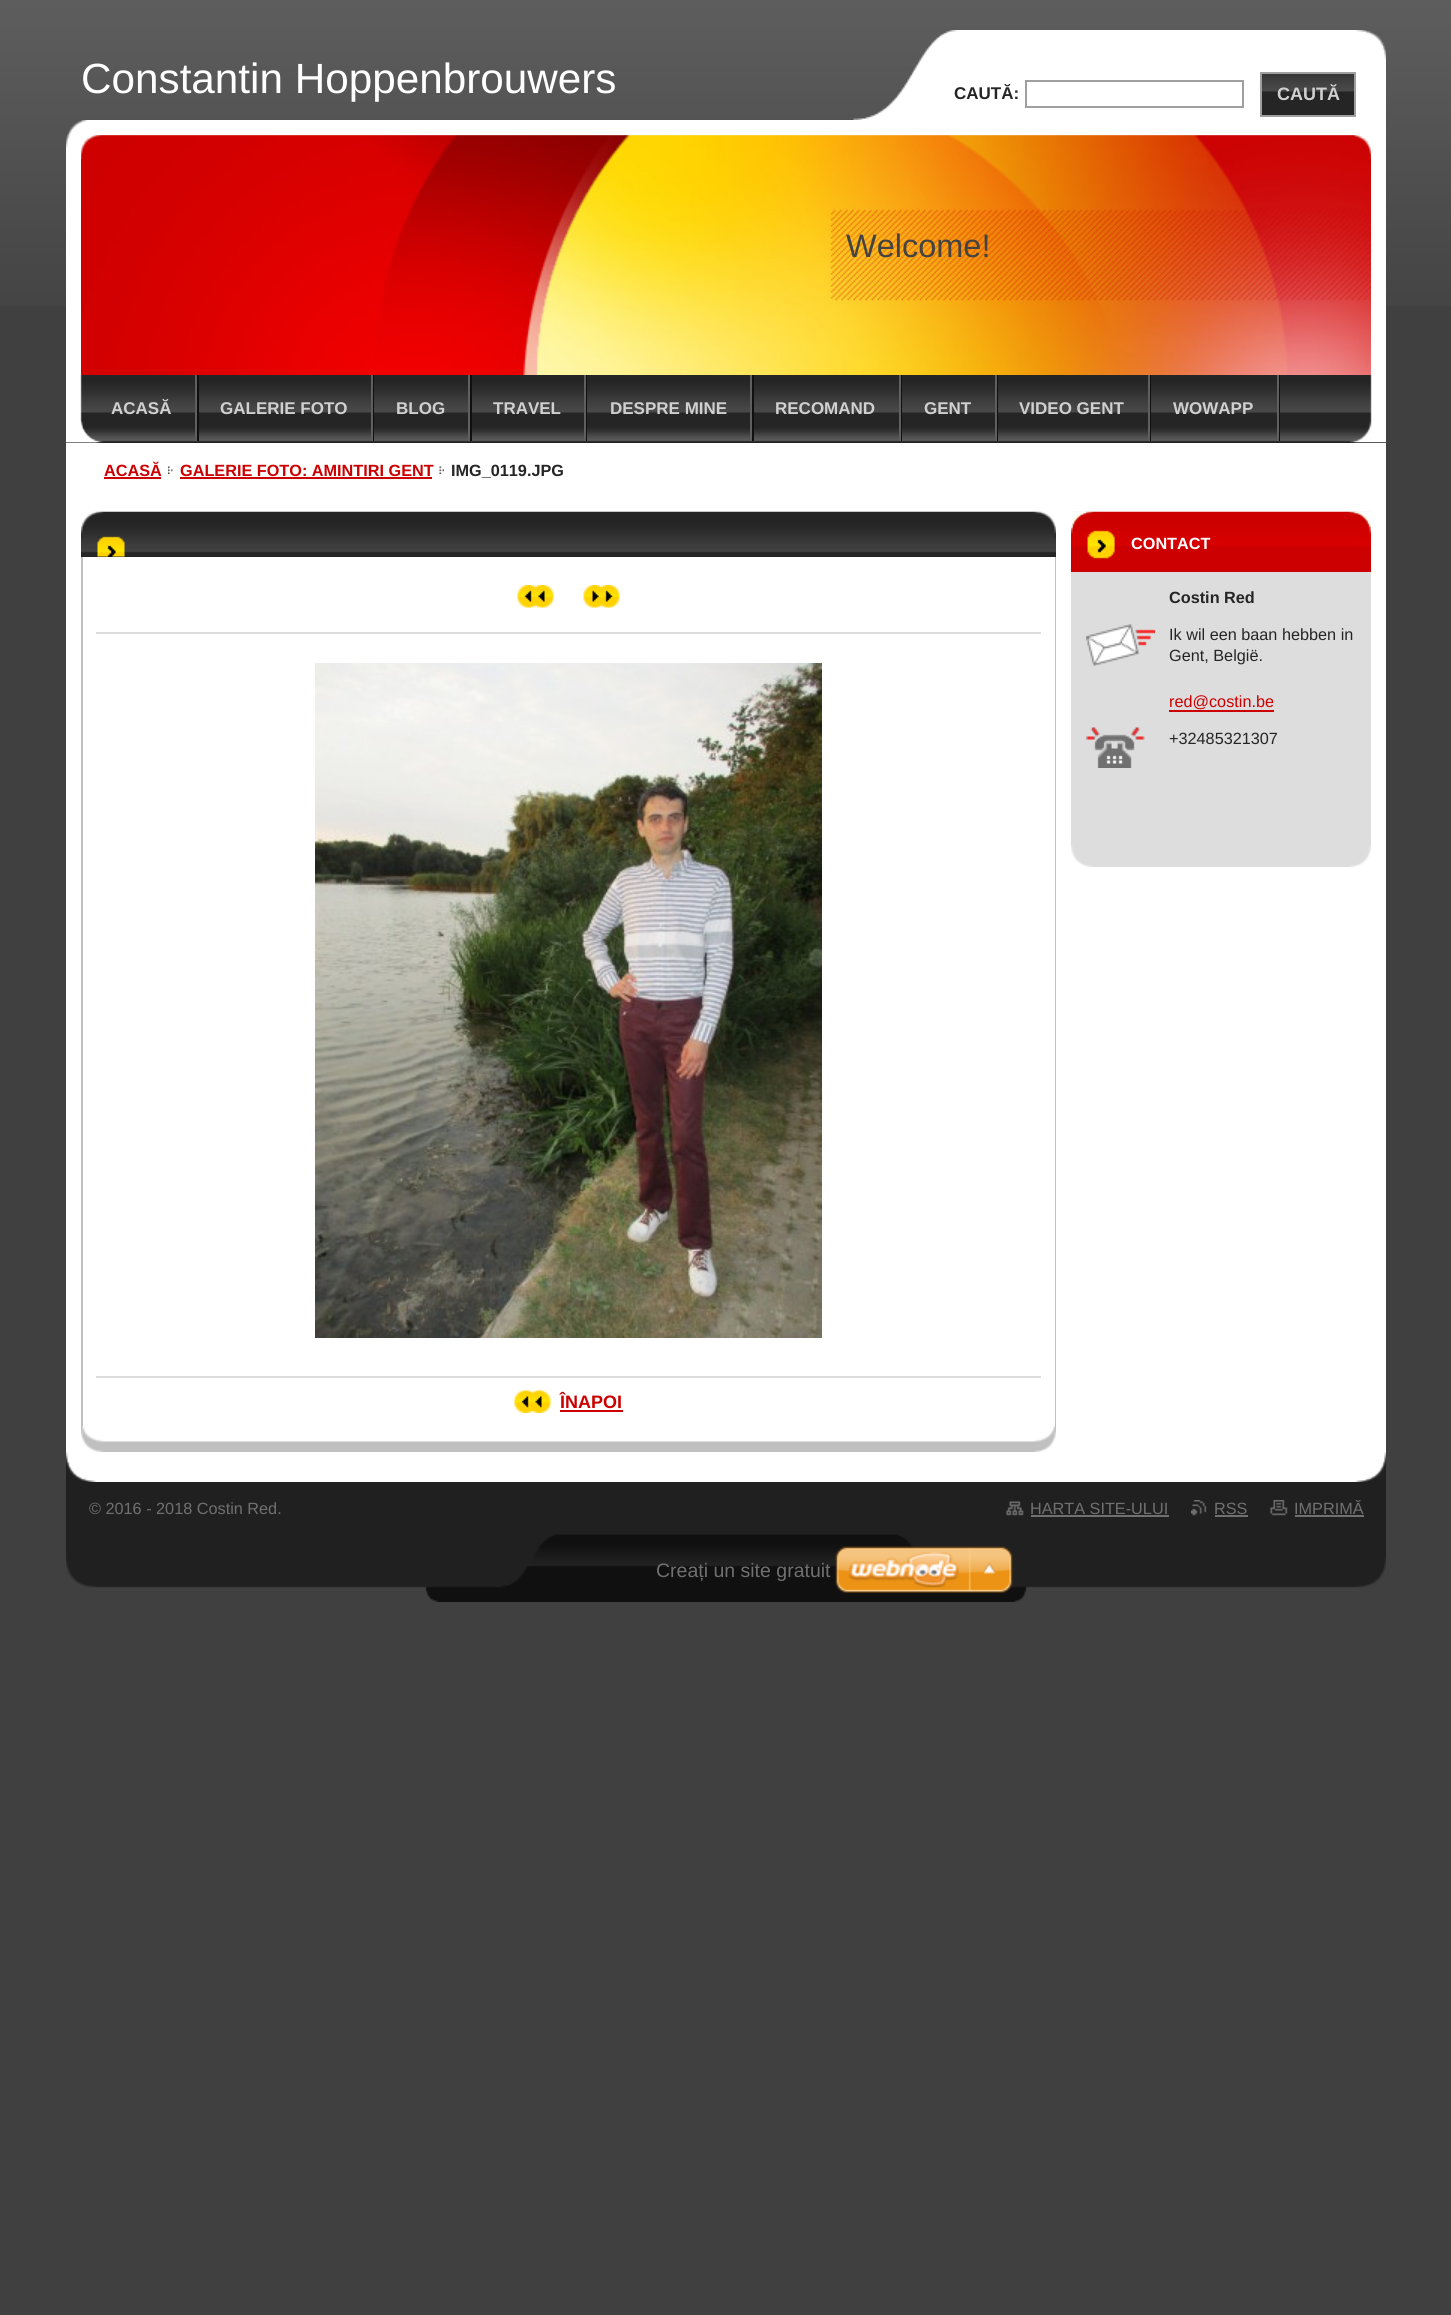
#include <cairo/cairo.h>
#include <math.h>
#include <stddef.h>


static void draw_image(cairo_t *cr, const char *path, double x, double y, double w, double h) {
  cairo_surface_t *image = cairo_image_surface_create_from_png(path);
  cairo_save(cr);
  cairo_set_source_surface(cr, image, x, y);
  cairo_rectangle(cr, x, y, w, h);
  cairo_fill(cr);
  cairo_restore(cr);
  cairo_surface_destroy(image);
}

static void draw(cairo_t *cr) {
  cairo_set_source_rgb(cr, 64 / 255.0, 64 / 255.0, 64 / 255.0);
  cairo_paint(cr);
  draw_image(cr, "images/1.png", 0, 0, 1451, 306);
  draw_image(cr, "images/2.png", 66, 120, 1320, 255);
  draw_image(cr, "images/4.png", 81, 135, 1290, 240);
  draw_image(cr, "images/3.png", 66, 120, 1305, 39);
  cairo_set_source_rgb(cr, 34 / 255.0, 34 / 255.0, 34 / 255.0);
  cairo_rectangle(cr, 66, 442, 1320, 1);
  cairo_fill(cr);
  draw_image(cr, "images/5.png", 66, 375, 1320, 68);
  cairo_set_source_rgb(cr, 16 / 255.0, 16 / 255.0, 16 / 255.0);
  cairo_rectangle(cr, 197, 375, 2, 66);
  cairo_fill(cr);
  cairo_set_source_rgb(cr, 95 / 255.0, 95 / 255.0, 95 / 255.0);
  cairo_rectangle(cr, 195, 375, 2, 66);
  cairo_fill(cr);
  cairo_set_source_rgb(cr, 16 / 255.0, 16 / 255.0, 16 / 255.0);
  cairo_rectangle(cr, 373, 375, 1, 66);
  cairo_fill(cr);
  cairo_set_source_rgb(cr, 95 / 255.0, 95 / 255.0, 95 / 255.0);
  cairo_rectangle(cr, 371, 375, 2, 66);
  cairo_fill(cr);
  cairo_set_source_rgb(cr, 16 / 255.0, 16 / 255.0, 16 / 255.0);
  cairo_rectangle(cr, 470, 375, 2, 66);
  cairo_fill(cr);
  cairo_set_source_rgb(cr, 95 / 255.0, 95 / 255.0, 95 / 255.0);
  cairo_rectangle(cr, 468, 375, 2, 66);
  cairo_fill(cr);
  cairo_set_source_rgb(cr, 16 / 255.0, 16 / 255.0, 16 / 255.0);
  cairo_rectangle(cr, 586, 375, 1, 66);
  cairo_fill(cr);
  cairo_set_source_rgb(cr, 95 / 255.0, 95 / 255.0, 95 / 255.0);
  cairo_rectangle(cr, 584, 375, 2, 66);
  cairo_fill(cr);
  cairo_set_source_rgb(cr, 16 / 255.0, 16 / 255.0, 16 / 255.0);
  cairo_rectangle(cr, 752, 375, 2, 66);
  cairo_fill(cr);
  cairo_set_source_rgb(cr, 95 / 255.0, 95 / 255.0, 95 / 255.0);
  cairo_rectangle(cr, 750, 375, 2, 66);
  cairo_fill(cr);
  cairo_set_source_rgb(cr, 16 / 255.0, 16 / 255.0, 16 / 255.0);
  cairo_rectangle(cr, 901, 375, 1, 66);
  cairo_fill(cr);
  cairo_set_source_rgb(cr, 95 / 255.0, 95 / 255.0, 95 / 255.0);
  cairo_rectangle(cr, 899, 375, 2, 66);
  cairo_fill(cr);
  cairo_set_source_rgb(cr, 16 / 255.0, 16 / 255.0, 16 / 255.0);
  cairo_rectangle(cr, 997, 375, 1, 66);
  cairo_fill(cr);
  cairo_set_source_rgb(cr, 95 / 255.0, 95 / 255.0, 95 / 255.0);
  cairo_rectangle(cr, 995, 375, 2, 66);
  cairo_fill(cr);
  cairo_set_source_rgb(cr, 16 / 255.0, 16 / 255.0, 16 / 255.0);
  cairo_rectangle(cr, 1150, 375, 1, 66);
  cairo_fill(cr);
  cairo_set_source_rgb(cr, 95 / 255.0, 95 / 255.0, 95 / 255.0);
  cairo_rectangle(cr, 1148, 375, 2, 66);
  cairo_fill(cr);
  cairo_set_source_rgb(cr, 16 / 255.0, 16 / 255.0, 16 / 255.0);
  cairo_rectangle(cr, 1279, 375, 1, 66);
  cairo_fill(cr);
  cairo_set_source_rgb(cr, 95 / 255.0, 95 / 255.0, 95 / 255.0);
  cairo_rectangle(cr, 1277, 375, 2, 66);
  cairo_fill(cr);
  draw_image(cr, "images/6.png", 66, 421, 35, 22);
  draw_image(cr, "images/7.png", 853, 30, 533, 90);
  cairo_rectangle(cr, 1026, 81, 217, 26);
  cairo_set_source_rgb(cr, 159 / 255.0, 159 / 255.0, 159 / 255.0);
  cairo_stroke(cr);
  cairo_set_source_rgb(cr, 37 / 255.0, 37 / 255.0, 37 / 255.0);
  cairo_rectangle(cr, 1262, 91, 92, 24);
  cairo_fill(cr);
  draw_image(cr, "images/8.png", 1262, 74, 92, 18);
  cairo_rectangle(cr, 1261, 73, 94, 43);
  cairo_set_source_rgb(cr, 159 / 255.0, 159 / 255.0, 159 / 255.0);
  cairo_stroke(cr);
  cairo_set_source_rgb(cr, 1, 1, 1);
  cairo_rectangle(cr, 66, 443, 1320, 1039);
  cairo_fill(cr);
  cairo_set_source_rgb(cr, 204 / 255.0, 0, 0);
  cairo_rectangle(cr, 104, 477, 57, 2);
  cairo_fill(cr);
  draw_image(cr, "images/9.png", 168, 466, 5, 8);
  cairo_rectangle(cr, 180, 477, 252, 2);
  cairo_fill(cr);
  draw_image(cr, "images/10.png", 439, 466, 5, 8);
  draw_image(cr, "images/11.png", 66, 1452, 1320, 30);
  cairo_set_source_rgb(cr, 221 / 255.0, 221 / 255.0, 221 / 255.0);
  cairo_rectangle(cr, 1071, 572, 300, 274);
  cairo_fill(cr);
  draw_image(cr, "images/12.png", 1071, 846, 300, 21);
  draw_image(cr, "images/14.png", 1071, 511, 300, 48);
  draw_image(cr, "images/13.png", 1071, 511, 300, 18);
  cairo_set_source_rgb(cr, 204 / 255.0, 0, 0);
  cairo_rectangle(cr, 1071, 559, 300, 13);
  cairo_fill(cr);
  draw_image(cr, "images/15.png", 1086, 624, 69, 42);
  cairo_rectangle(cr, 1169, 710, 105, 2);
  cairo_fill(cr);
  draw_image(cr, "images/16.png", 1086, 727, 59, 41);
  draw_image(cr, "images/17.png", 81, 511, 975, 23);
  cairo_set_source_rgb(cr, 192 / 255.0, 192 / 255.0, 192 / 255.0);
  cairo_rectangle(cr, 1055, 557, 1, 870);
  cairo_fill(cr);
  cairo_rectangle(cr, 81, 557, 2, 870);
  cairo_fill(cr);
  draw_image(cr, "images/18.png", 81, 1426, 975, 26);
  cairo_set_source_rgb(cr, 37 / 255.0, 37 / 255.0, 37 / 255.0);
  cairo_rectangle(cr, 81, 556, 975, 1);
  cairo_fill(cr);
  draw_image(cr, "images/19.png", 81, 534, 975, 23);
  cairo_set_source_rgb(cr, 221 / 255.0, 221 / 255.0, 221 / 255.0);
  cairo_rectangle(cr, 96, 632, 945, 2);
  cairo_fill(cr);
  draw_image(cr, "images/20.png", 517, 585, 37, 23);
  draw_image(cr, "images/21.png", 583, 585, 37, 23);
  draw_image(cr, "images/22.png", 315, 663, 507, 675);
  cairo_rectangle(cr, 96, 1376, 945, 2);
  cairo_fill(cr);
  draw_image(cr, "images/23.png", 514, 1390, 37, 23);
  cairo_set_source_rgb(cr, 204 / 255.0, 0, 0);
  cairo_rectangle(cr, 560, 1410, 63, 2);
  cairo_fill(cr);
  cairo_set_source_rgb(cr, 32 / 255.0, 32 / 255.0, 32 / 255.0);
  cairo_rectangle(cr, 66, 1482, 1320, 53);
  cairo_fill(cr);
  draw_image(cr, "images/24.png", 1006, 1501, 18, 15);
  cairo_set_source_rgb(cr, 112 / 255.0, 112 / 255.0, 112 / 255.0);
  cairo_rectangle(cr, 1031, 1515, 138, 2);
  cairo_fill(cr);
  draw_image(cr, "images/25.png", 1191, 1500, 16, 16);
  cairo_rectangle(cr, 1215, 1515, 33, 2);
  cairo_fill(cr);
  draw_image(cr, "images/26.png", 1270, 1500, 18, 16);
  cairo_rectangle(cr, 1295, 1515, 69, 2);
  cairo_fill(cr);
  draw_image(cr, "images/27.png", 66, 1534, 1320, 68);
  draw_image(cr, "images/28.png", 835, 1546, 178, 47);
  cairo_select_font_face(cr, "Liberation Sans", CAIRO_FONT_SLANT_NORMAL, CAIRO_FONT_WEIGHT_NORMAL);
  cairo_set_font_size(cr, 42.25);
  cairo_set_source_rgb(cr, 1, 1, 1);
  cairo_move_to(cr, 81, 93);
  cairo_show_text(cr, "Constantin Hoppenbrouwers");
  cairo_set_font_size(cr, 32.5);
  cairo_set_source_rgb(cr, 67 / 255.0, 67 / 255.0, 67 / 255.0);
  cairo_move_to(cr, 846, 257);
  cairo_show_text(cr, "Welcome!");
  cairo_select_font_face(cr, "Liberation Sans", CAIRO_FONT_SLANT_NORMAL, CAIRO_FONT_WEIGHT_BOLD);
  cairo_set_font_size(cr, 17);
  cairo_set_source_rgb(cr, 208 / 255.0, 208 / 255.0, 208 / 255.0);
  cairo_move_to(cr, 111, 414);
  cairo_show_text(cr, "ACASĂ");
  cairo_move_to(cr, 220, 414);
  cairo_show_text(cr, "GALERIE FOTO");
  cairo_move_to(cr, 396, 414);
  cairo_show_text(cr, "BLOG");
  cairo_move_to(cr, 493, 414);
  cairo_show_text(cr, "TRAVEL");
  cairo_move_to(cr, 610, 414);
  cairo_show_text(cr, "DESPRE MINE");
  cairo_move_to(cr, 775, 414);
  cairo_show_text(cr, "RECOMAND");
  cairo_move_to(cr, 924, 414);
  cairo_show_text(cr, "GENT");
  cairo_move_to(cr, 1019, 414);
  cairo_show_text(cr, "VIDEO GENT");
  cairo_move_to(cr, 1173, 414);
  cairo_show_text(cr, "WOWAPP");
  cairo_set_source_rgb(cr, 37 / 255.0, 37 / 255.0, 37 / 255.0);
  cairo_move_to(cr, 954, 99);
  cairo_show_text(cr, "CAUTĂ:");
  cairo_set_font_size(cr, 18);
  cairo_set_source_rgb(cr, 208 / 255.0, 208 / 255.0, 208 / 255.0);
  cairo_move_to(cr, 1277, 100);
  cairo_show_text(cr, "CAUTĂ");
  cairo_set_font_size(cr, 16.25);
  cairo_set_source_rgb(cr, 204 / 255.0, 0, 0);
  cairo_move_to(cr, 104, 476);
  cairo_show_text(cr, "ACASĂ");
  cairo_move_to(cr, 180, 476);
  cairo_show_text(cr, "GALERIE FOTO: AMINTIRI GENT");
  cairo_set_source_rgb(cr, 37 / 255.0, 37 / 255.0, 37 / 255.0);
  cairo_move_to(cr, 451, 476);
  cairo_show_text(cr, "IMG_0119.JPG");
  cairo_set_source_rgb(cr, 1, 1, 1);
  cairo_move_to(cr, 1131, 549);
  cairo_show_text(cr, "CONTACT");
  cairo_set_source_rgb(cr, 37 / 255.0, 37 / 255.0, 37 / 255.0);
  cairo_move_to(cr, 1169, 603);
  cairo_show_text(cr, "Costin Red");
  cairo_select_font_face(cr, "Liberation Sans", CAIRO_FONT_SLANT_NORMAL, CAIRO_FONT_WEIGHT_NORMAL);
  cairo_move_to(cr, 1169, 640);
  cairo_show_text(cr, "Ik wil een baan hebben in");
  cairo_move_to(cr, 1169, 661);
  cairo_show_text(cr, "Gent, België.");
  cairo_set_source_rgb(cr, 204 / 255.0, 0, 0);
  cairo_move_to(cr, 1169, 707);
  cairo_show_text(cr, "red@costin.be");
  cairo_set_source_rgb(cr, 37 / 255.0, 37 / 255.0, 37 / 255.0);
  cairo_move_to(cr, 1169, 744);
  cairo_show_text(cr, "+32485321307");
  cairo_select_font_face(cr, "Liberation Sans", CAIRO_FONT_SLANT_NORMAL, CAIRO_FONT_WEIGHT_BOLD);
  cairo_set_font_size(cr, 18);
  cairo_set_source_rgb(cr, 204 / 255.0, 0, 0);
  cairo_move_to(cr, 560, 1408);
  cairo_show_text(cr, "ÎNAPOI");
  cairo_save(cr);
  cairo_rectangle(cr, 89, 1497, 705, 23);
  cairo_clip(cr);
  cairo_select_font_face(cr, "Liberation Sans", CAIRO_FONT_SLANT_NORMAL, CAIRO_FONT_WEIGHT_NORMAL);
  cairo_set_font_size(cr, 16.25);
  cairo_set_source_rgb(cr, 112 / 255.0, 112 / 255.0, 112 / 255.0);
  cairo_move_to(cr, 89, 1514);
  cairo_show_text(cr, "© 2016 - 2018 Costin Red.");
  cairo_restore(cr);
  cairo_select_font_face(cr, "Liberation Sans", CAIRO_FONT_SLANT_NORMAL, CAIRO_FONT_WEIGHT_NORMAL);
  cairo_set_font_size(cr, 16.25);
  cairo_set_source_rgb(cr, 112 / 255.0, 112 / 255.0, 112 / 255.0);
  cairo_move_to(cr, 1030, 1514);
  cairo_show_text(cr, "HARTA SITE-ULUI");
  cairo_move_to(cr, 1214, 1514);
  cairo_show_text(cr, "RSS");
  cairo_move_to(cr, 1294, 1514);
  cairo_show_text(cr, "IMPRIMĂ");
  cairo_set_font_size(cr, 19.5);
  cairo_move_to(cr, 656, 1577);
  cairo_show_text(cr, "Creați un site gratuit");
}

int main(void) {
  cairo_surface_t *surface = cairo_image_surface_create(CAIRO_FORMAT_RGB24, 1451, 2315);
  cairo_t *cr = cairo_create(surface);
  cairo_font_options_t *options = cairo_font_options_create();
  cairo_font_options_set_hint_metrics(options, CAIRO_HINT_METRICS_OFF);
  cairo_font_options_set_hint_style(options, CAIRO_HINT_STYLE_NONE);
  cairo_set_font_options(cr, options);
  cairo_set_miter_limit(cr, 4);
  draw(cr);
  cairo_surface_write_to_png(surface, "out.png");
  cairo_font_options_destroy(options);
  cairo_destroy(cr);
  cairo_surface_destroy(surface);
  return 0;
}
